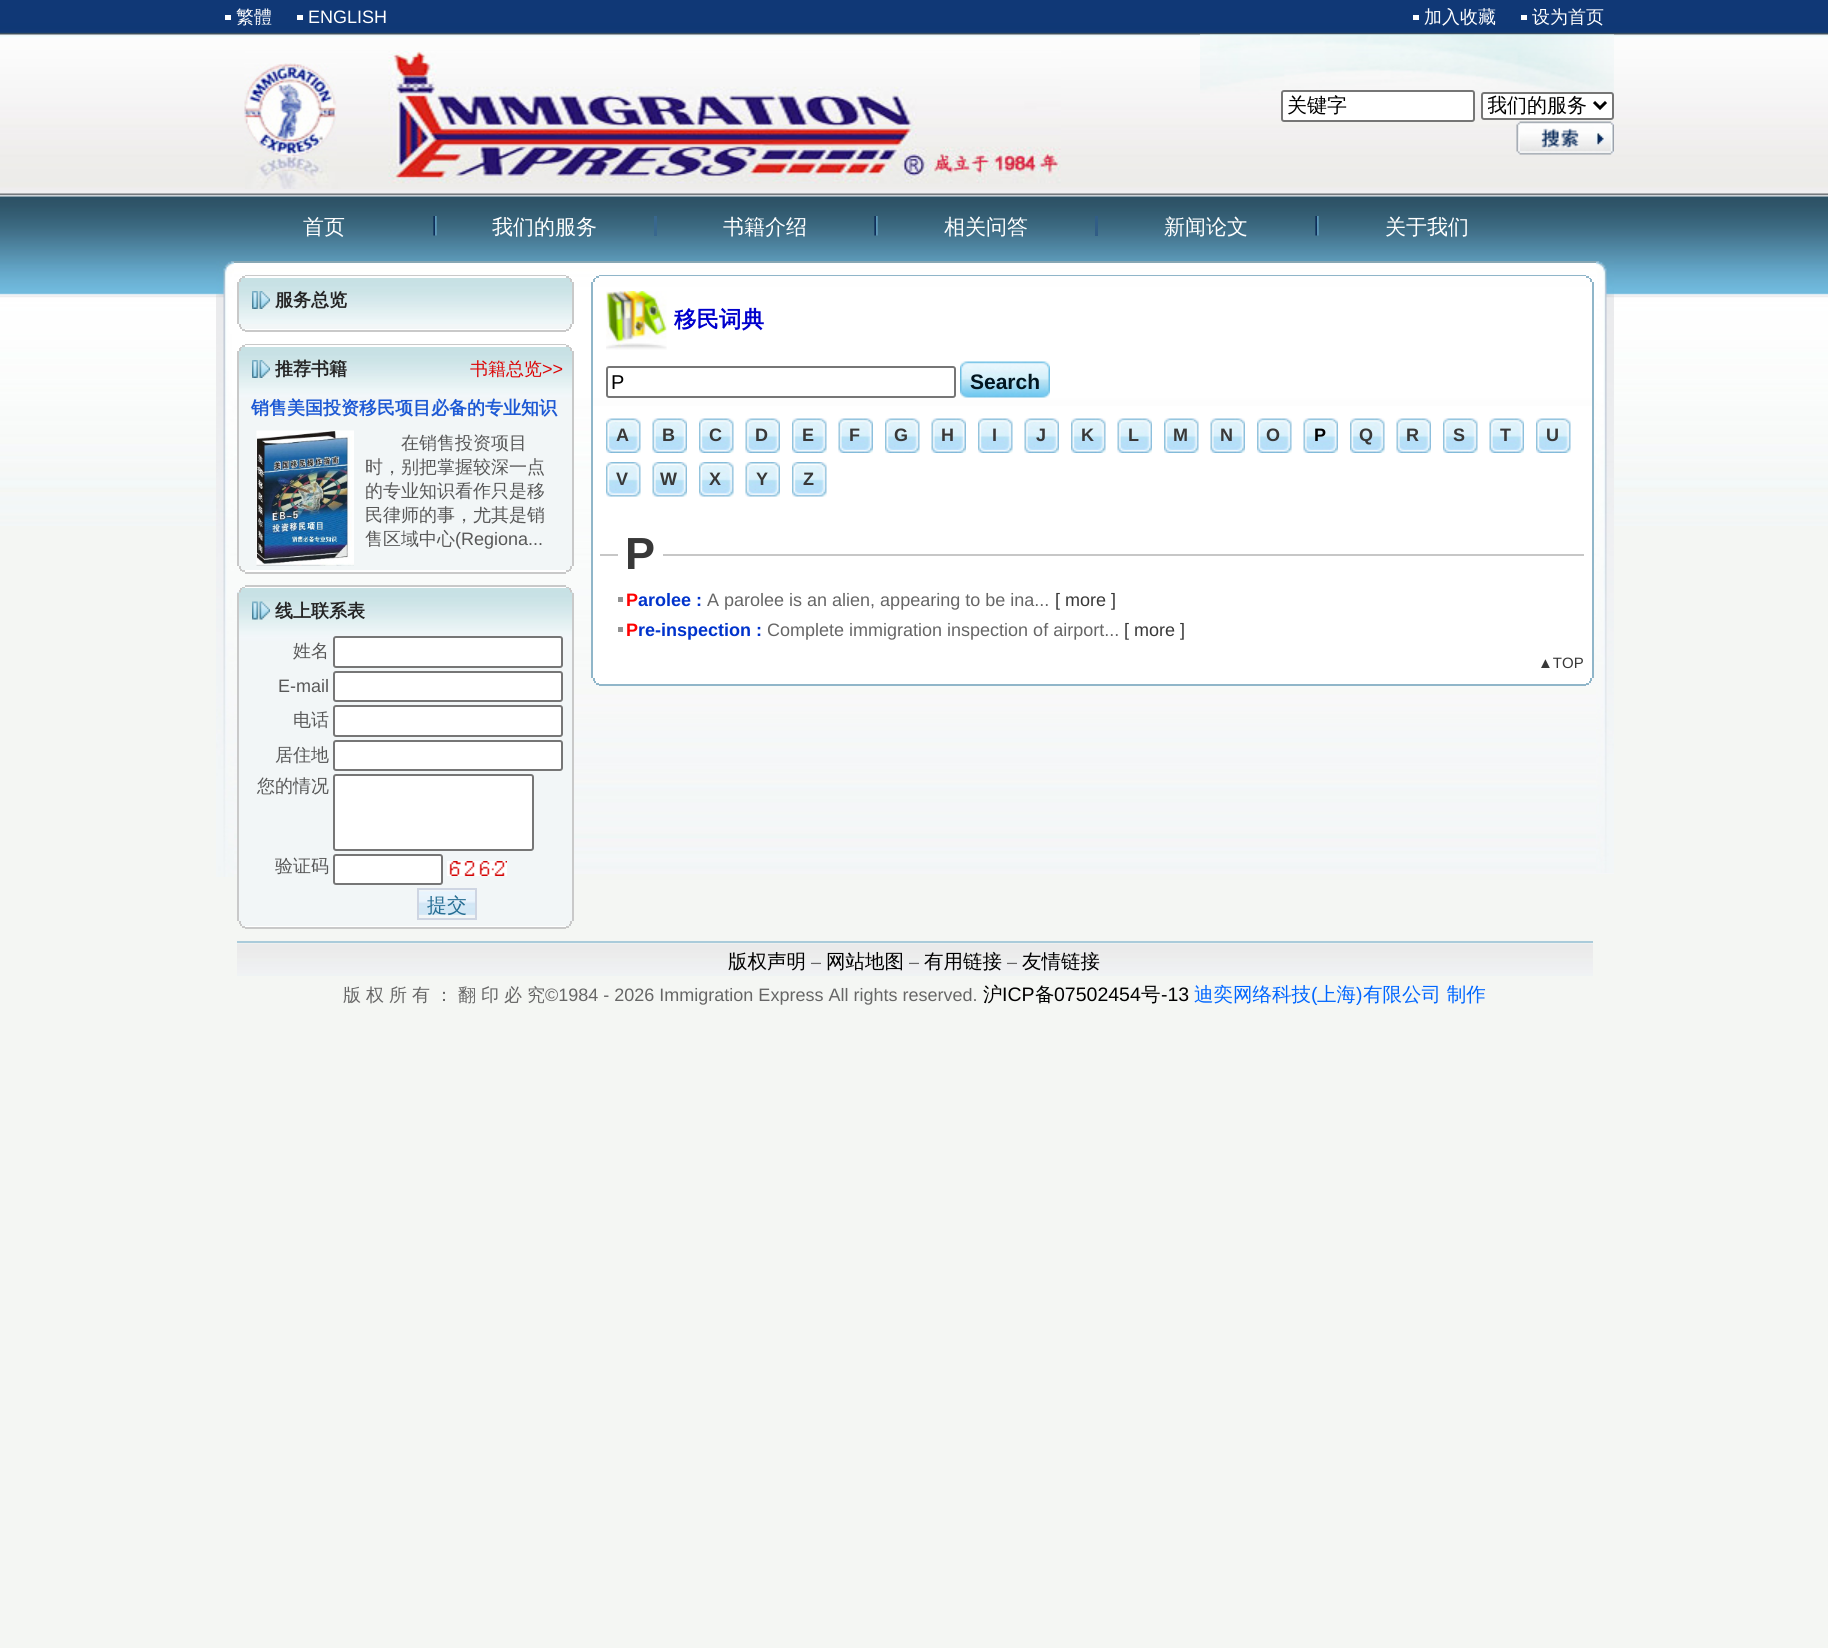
#include <cairo/cairo.h>
#include <math.h>
#include <stddef.h>


static void rounded_rect(cairo_t *cr, double x, double y, double w, double h, double r) {
  cairo_new_sub_path(cr);
  cairo_arc(cr, x + w - r, y + h - r, r, 0, M_PI / 2);
  cairo_arc(cr, x + r, y + h - r, r, M_PI / 2, M_PI);
  cairo_arc(cr, x + r, y + r, r, M_PI, 1.5 * M_PI);
  cairo_arc(cr, x + w - r, y + r, r, 1.5 * M_PI, 2 * M_PI);
  cairo_close_path(cr);
}

static void draw_image(cairo_t *cr, const char *path, double x, double y, double w, double h) {
  cairo_surface_t *image = cairo_image_surface_create_from_png(path);
  cairo_save(cr);
  cairo_set_source_surface(cr, image, x, y);
  cairo_rectangle(cr, x, y, w, h);
  cairo_fill(cr);
  cairo_restore(cr);
  cairo_surface_destroy(image);
}

static void draw(cairo_t *cr) {
  cairo_set_source_rgb(cr, 244 / 255.0, 246 / 255.0, 243 / 255.0);
  cairo_paint(cr);
  draw_image(cr, "images/1.png", 0, 0, 1828, 526);
  cairo_set_source_rgb(cr, 1, 1, 1);
  cairo_rectangle(cr, 225, 15, 6, 5);
  cairo_fill(cr);
  cairo_rectangle(cr, 297, 15, 6, 5);
  cairo_fill(cr);
  cairo_rectangle(cr, 1413, 15, 6, 5);
  cairo_fill(cr);
  cairo_rectangle(cr, 1521, 15, 6, 5);
  cairo_fill(cr);
  draw_image(cr, "images/2.png", 245, 51, 816, 138);
  draw_image(cr, "images/3.png", 244, 63, 93, 93);
  draw_image(cr, "images/4.png", 1200, 34, 414, 67);
  rounded_rect(cr, 1282, 91, 192, 30, 2);
  cairo_fill_preserve(cr);
  cairo_set_source_rgb(cr, 118 / 255.0, 118 / 255.0, 118 / 255.0);
  cairo_stroke(cr);
  cairo_set_source_rgb(cr, 1, 1, 1);
  rounded_rect(cr, 1482, 93, 131, 26, 2);
  cairo_fill_preserve(cr);
  cairo_set_source_rgb(cr, 118 / 255.0, 118 / 255.0, 118 / 255.0);
  cairo_stroke(cr);
  cairo_new_path(cr);
  cairo_move_to(cr, 1594, 102);
  cairo_line_to(cr, 1600, 108);
  cairo_line_to(cr, 1606, 102);
  cairo_set_source_rgb(cr, 0, 0, 0);
  cairo_set_line_width(cr, 3);
  cairo_stroke(cr);
  draw_image(cr, "images/5.png", 1516, 121, 98, 34);
  draw_image(cr, "images/6.png", 433, 216, 4, 20);
  cairo_set_source_rgb(cr, 56 / 255.0, 103 / 255.0, 142 / 255.0);
  cairo_rectangle(cr, 654, 216, 3, 20);
  cairo_fill(cr);
  draw_image(cr, "images/6.png", 874, 216, 4, 20);
  cairo_set_source_rgb(cr, 49 / 255.0, 93 / 255.0, 134 / 255.0);
  cairo_rectangle(cr, 1095, 216, 3, 20);
  cairo_fill(cr);
  draw_image(cr, "images/6.png", 1315, 216, 4, 20);
  draw_image(cr, "images/7.png", 1596, 873, 18, 1);
  draw_image(cr, "images/8.png", 216, 261, 18, 616);
  draw_image(cr, "images/9.png", 234, 263, 1362, 611);
  cairo_set_source_rgb(cr, 134 / 255.0, 166 / 255.0, 179 / 255.0);
  cairo_rectangle(cr, 234, 261, 1362, 2);
  cairo_fill(cr);
  cairo_set_source_rgb(cr, 201 / 255.0, 201 / 255.0, 201 / 255.0);
  cairo_rectangle(cr, 245, 275, 321, 1);
  cairo_fill(cr);
  cairo_rectangle(cr, 566, 276, 3, 2);
  cairo_fill(cr);
  cairo_rectangle(cr, 242, 276, 3, 2);
  cairo_fill(cr);
  cairo_set_source_rgb(cr, 199 / 255.0, 225 / 255.0, 228 / 255.0);
  cairo_rectangle(cr, 240, 278, 330, 1);
  cairo_fill(cr);
  cairo_set_source_rgb(cr, 201 / 255.0, 201 / 255.0, 201 / 255.0);
  cairo_rectangle(cr, 569, 278, 2, 1);
  cairo_fill(cr);
  cairo_rectangle(cr, 240, 278, 2, 1);
  cairo_fill(cr);
  cairo_set_source_rgb(cr, 199 / 255.0, 225 / 255.0, 228 / 255.0);
  cairo_rectangle(cr, 239, 279, 333, 3);
  cairo_fill(cr);
  cairo_set_source_rgb(cr, 201 / 255.0, 201 / 255.0, 201 / 255.0);
  cairo_rectangle(cr, 570, 279, 2, 3);
  cairo_fill(cr);
  cairo_rectangle(cr, 239, 279, 2, 3);
  cairo_fill(cr);
  draw_image(cr, "images/10.png", 239, 282, 333, 42);
  cairo_rectangle(cr, 572, 282, 2, 42);
  cairo_fill(cr);
  cairo_rectangle(cr, 237, 282, 2, 42);
  cairo_fill(cr);
  draw_image(cr, "images/11.png", 252, 291, 18, 18);
  cairo_set_source_rgb(cr, 242 / 255.0, 246 / 255.0, 247 / 255.0);
  cairo_rectangle(cr, 239, 324, 333, 3);
  cairo_fill(cr);
  cairo_set_source_rgb(cr, 201 / 255.0, 201 / 255.0, 201 / 255.0);
  cairo_rectangle(cr, 570, 324, 2, 3);
  cairo_fill(cr);
  cairo_rectangle(cr, 239, 324, 2, 3);
  cairo_fill(cr);
  cairo_set_source_rgb(cr, 242 / 255.0, 246 / 255.0, 247 / 255.0);
  cairo_rectangle(cr, 240, 327, 330, 2);
  cairo_fill(cr);
  cairo_set_source_rgb(cr, 201 / 255.0, 201 / 255.0, 201 / 255.0);
  cairo_rectangle(cr, 569, 327, 2, 2);
  cairo_fill(cr);
  cairo_rectangle(cr, 240, 327, 2, 2);
  cairo_fill(cr);
  cairo_rectangle(cr, 566, 329, 3, 2);
  cairo_fill(cr);
  cairo_rectangle(cr, 242, 329, 3, 2);
  cairo_fill(cr);
  cairo_rectangle(cr, 245, 330, 321, 2);
  cairo_fill(cr);
  cairo_rectangle(cr, 245, 344, 321, 1);
  cairo_fill(cr);
  cairo_rectangle(cr, 566, 345, 3, 2);
  cairo_fill(cr);
  cairo_rectangle(cr, 242, 345, 3, 2);
  cairo_fill(cr);
  cairo_set_source_rgb(cr, 199 / 255.0, 225 / 255.0, 228 / 255.0);
  cairo_rectangle(cr, 240, 347, 330, 1);
  cairo_fill(cr);
  cairo_set_source_rgb(cr, 201 / 255.0, 201 / 255.0, 201 / 255.0);
  cairo_rectangle(cr, 569, 347, 2, 1);
  cairo_fill(cr);
  cairo_rectangle(cr, 240, 347, 2, 1);
  cairo_fill(cr);
  cairo_set_source_rgb(cr, 199 / 255.0, 225 / 255.0, 228 / 255.0);
  cairo_rectangle(cr, 239, 348, 333, 3);
  cairo_fill(cr);
  cairo_set_source_rgb(cr, 201 / 255.0, 201 / 255.0, 201 / 255.0);
  cairo_rectangle(cr, 570, 348, 2, 3);
  cairo_fill(cr);
  cairo_rectangle(cr, 239, 348, 2, 3);
  cairo_fill(cr);
  cairo_set_source_rgb(cr, 242 / 255.0, 246 / 255.0, 247 / 255.0);
  cairo_rectangle(cr, 239, 402, 333, 167);
  cairo_fill(cr);
  draw_image(cr, "images/12.png", 239, 351, 333, 51);
  cairo_set_source_rgb(cr, 201 / 255.0, 201 / 255.0, 201 / 255.0);
  cairo_rectangle(cr, 572, 351, 2, 215);
  cairo_fill(cr);
  cairo_rectangle(cr, 237, 351, 2, 215);
  cairo_fill(cr);
  draw_image(cr, "images/11.png", 252, 360, 18, 18);
  draw_image(cr, "images/13.png", 256, 430, 98, 136);
  cairo_rectangle(cr, 570, 566, 2, 3);
  cairo_fill(cr);
  cairo_rectangle(cr, 239, 566, 2, 3);
  cairo_fill(cr);
  cairo_set_source_rgb(cr, 242 / 255.0, 246 / 255.0, 247 / 255.0);
  cairo_rectangle(cr, 240, 569, 330, 1);
  cairo_fill(cr);
  cairo_set_source_rgb(cr, 201 / 255.0, 201 / 255.0, 201 / 255.0);
  cairo_rectangle(cr, 569, 569, 2, 2);
  cairo_fill(cr);
  cairo_rectangle(cr, 240, 569, 2, 2);
  cairo_fill(cr);
  cairo_set_source_rgb(cr, 1, 1, 1);
  cairo_rectangle(cr, 242, 570, 327, 2);
  cairo_fill(cr);
  cairo_set_source_rgb(cr, 201 / 255.0, 201 / 255.0, 201 / 255.0);
  cairo_rectangle(cr, 566, 570, 3, 2);
  cairo_fill(cr);
  cairo_rectangle(cr, 242, 570, 3, 2);
  cairo_fill(cr);
  cairo_rectangle(cr, 245, 572, 321, 2);
  cairo_fill(cr);
  cairo_rectangle(cr, 245, 585, 321, 2);
  cairo_fill(cr);
  cairo_set_source_rgb(cr, 1, 1, 1);
  cairo_rectangle(cr, 242, 587, 327, 1);
  cairo_fill(cr);
  cairo_set_source_rgb(cr, 201 / 255.0, 201 / 255.0, 201 / 255.0);
  cairo_rectangle(cr, 566, 587, 3, 1);
  cairo_fill(cr);
  cairo_rectangle(cr, 242, 587, 3, 1);
  cairo_fill(cr);
  cairo_set_source_rgb(cr, 199 / 255.0, 225 / 255.0, 228 / 255.0);
  cairo_rectangle(cr, 240, 588, 330, 2);
  cairo_fill(cr);
  cairo_set_source_rgb(cr, 201 / 255.0, 201 / 255.0, 201 / 255.0);
  cairo_rectangle(cr, 569, 588, 2, 2);
  cairo_fill(cr);
  cairo_rectangle(cr, 240, 588, 2, 2);
  cairo_fill(cr);
  cairo_set_source_rgb(cr, 199 / 255.0, 225 / 255.0, 228 / 255.0);
  cairo_rectangle(cr, 239, 590, 333, 3);
  cairo_fill(cr);
  cairo_set_source_rgb(cr, 201 / 255.0, 201 / 255.0, 201 / 255.0);
  cairo_rectangle(cr, 570, 590, 2, 3);
  cairo_fill(cr);
  cairo_rectangle(cr, 239, 590, 2, 3);
  cairo_fill(cr);
  cairo_set_source_rgb(cr, 242 / 255.0, 246 / 255.0, 247 / 255.0);
  cairo_rectangle(cr, 239, 643, 333, 281);
  cairo_fill(cr);
  draw_image(cr, "images/14.png", 237, 592, 336, 51);
  cairo_set_source_rgb(cr, 201 / 255.0, 201 / 255.0, 201 / 255.0);
  cairo_rectangle(cr, 572, 593, 2, 328);
  cairo_fill(cr);
  cairo_rectangle(cr, 237, 593, 2, 328);
  cairo_fill(cr);
  draw_image(cr, "images/15.png", 252, 601, 18, 19);
  cairo_set_source_rgb(cr, 1, 1, 1);
  rounded_rect(cr, 334, 637, 228, 30, 2);
  cairo_fill_preserve(cr);
  cairo_set_source_rgb(cr, 118 / 255.0, 118 / 255.0, 118 / 255.0);
  cairo_set_line_width(cr, 2);
  cairo_stroke(cr);
  cairo_set_source_rgb(cr, 1, 1, 1);
  rounded_rect(cr, 334, 672, 228, 29, 2);
  cairo_fill_preserve(cr);
  cairo_set_source_rgb(cr, 118 / 255.0, 118 / 255.0, 118 / 255.0);
  cairo_stroke(cr);
  cairo_set_source_rgb(cr, 1, 1, 1);
  rounded_rect(cr, 334, 706, 228, 30, 2);
  cairo_fill_preserve(cr);
  cairo_set_source_rgb(cr, 118 / 255.0, 118 / 255.0, 118 / 255.0);
  cairo_stroke(cr);
  cairo_set_source_rgb(cr, 1, 1, 1);
  rounded_rect(cr, 334, 741, 228, 29, 2);
  cairo_fill_preserve(cr);
  cairo_set_source_rgb(cr, 118 / 255.0, 118 / 255.0, 118 / 255.0);
  cairo_stroke(cr);
  cairo_set_source_rgb(cr, 1, 1, 1);
  rounded_rect(cr, 334, 775, 199, 75, 2);
  cairo_fill_preserve(cr);
  cairo_set_source_rgb(cr, 118 / 255.0, 118 / 255.0, 118 / 255.0);
  cairo_stroke(cr);
  cairo_set_source_rgb(cr, 1, 1, 1);
  rounded_rect(cr, 334, 855, 108, 29, 2);
  cairo_fill_preserve(cr);
  cairo_set_source_rgb(cr, 118 / 255.0, 118 / 255.0, 118 / 255.0);
  cairo_stroke(cr);
  draw_image(cr, "images/16.png", 447, 861, 60, 15);
  draw_image(cr, "images/17.png", 419, 891, 56, 24);
  cairo_rectangle(cr, 418, 889, 58, 30);
  cairo_set_source_rgb(cr, 206 / 255.0, 213 / 255.0, 226 / 255.0);
  cairo_stroke(cr);
  cairo_set_source_rgb(cr, 201 / 255.0, 201 / 255.0, 201 / 255.0);
  cairo_rectangle(cr, 570, 921, 2, 3);
  cairo_fill(cr);
  cairo_rectangle(cr, 239, 921, 2, 3);
  cairo_fill(cr);
  cairo_set_source_rgb(cr, 242 / 255.0, 246 / 255.0, 247 / 255.0);
  cairo_rectangle(cr, 240, 924, 330, 2);
  cairo_fill(cr);
  cairo_set_source_rgb(cr, 201 / 255.0, 201 / 255.0, 201 / 255.0);
  cairo_rectangle(cr, 569, 924, 2, 2);
  cairo_fill(cr);
  cairo_rectangle(cr, 240, 924, 2, 2);
  cairo_fill(cr);
  cairo_set_source_rgb(cr, 1, 1, 1);
  cairo_rectangle(cr, 242, 926, 327, 1);
  cairo_fill(cr);
  cairo_set_source_rgb(cr, 201 / 255.0, 201 / 255.0, 201 / 255.0);
  cairo_rectangle(cr, 566, 926, 3, 2);
  cairo_fill(cr);
  cairo_rectangle(cr, 242, 926, 3, 2);
  cairo_fill(cr);
  cairo_rectangle(cr, 245, 927, 321, 2);
  cairo_fill(cr);
  cairo_set_source_rgb(cr, 144 / 255.0, 182 / 255.0, 201 / 255.0);
  cairo_rectangle(cr, 599, 275, 987, 1);
  cairo_fill(cr);
  cairo_rectangle(cr, 1586, 276, 3, 2);
  cairo_fill(cr);
  cairo_rectangle(cr, 596, 276, 3, 2);
  cairo_fill(cr);
  cairo_rectangle(cr, 1589, 278, 2, 1);
  cairo_fill(cr);
  cairo_rectangle(cr, 594, 278, 2, 1);
  cairo_fill(cr);
  cairo_rectangle(cr, 1590, 279, 2, 3);
  cairo_fill(cr);
  cairo_rectangle(cr, 593, 279, 2, 3);
  cairo_fill(cr);
  cairo_set_source_rgb(cr, 1, 1, 1);
  cairo_rectangle(cr, 593, 406, 999, 275);
  cairo_fill(cr);
  cairo_set_source_rgb(cr, 144 / 255.0, 182 / 255.0, 201 / 255.0);
  cairo_rectangle(cr, 1592, 282, 2, 396);
  cairo_fill(cr);
  cairo_rectangle(cr, 591, 282, 2, 396);
  cairo_fill(cr);
  draw_image(cr, "images/18.png", 606, 291, 61, 59);
  rounded_rect(cr, 607, 367, 348, 30, 2);
  cairo_set_source_rgb(cr, 118 / 255.0, 118 / 255.0, 118 / 255.0);
  cairo_stroke(cr);
  draw_image(cr, "images/19.png", 960, 361, 90, 37);
  draw_image(cr, "images/20.png", 606, 418, 35, 35);
  draw_image(cr, "images/21.png", 652, 418, 35, 35);
  draw_image(cr, "images/20.png", 699, 418, 35, 35);
  draw_image(cr, "images/22.png", 745, 418, 35, 35);
  draw_image(cr, "images/20.png", 792, 418, 35, 35);
  draw_image(cr, "images/23.png", 838, 418, 35, 35);
  draw_image(cr, "images/20.png", 885, 418, 35, 35);
  draw_image(cr, "images/23.png", 931, 418, 35, 35);
  draw_image(cr, "images/20.png", 978, 418, 35, 35);
  draw_image(cr, "images/24.png", 1024, 418, 35, 35);
  draw_image(cr, "images/25.png", 1071, 418, 35, 35);
  draw_image(cr, "images/21.png", 1117, 418, 35, 35);
  draw_image(cr, "images/25.png", 1164, 418, 35, 35);
  draw_image(cr, "images/23.png", 1210, 418, 35, 35);
  draw_image(cr, "images/26.png", 1257, 418, 35, 35);
  draw_image(cr, "images/22.png", 1303, 418, 35, 35);
  draw_image(cr, "images/25.png", 1350, 418, 35, 35);
  draw_image(cr, "images/21.png", 1396, 418, 35, 35);
  draw_image(cr, "images/20.png", 1443, 418, 35, 35);
  draw_image(cr, "images/21.png", 1489, 418, 35, 35);
  draw_image(cr, "images/20.png", 1536, 418, 35, 35);
  draw_image(cr, "images/27.png", 606, 462, 35, 35);
  draw_image(cr, "images/28.png", 652, 462, 35, 35);
  draw_image(cr, "images/27.png", 699, 462, 35, 35);
  draw_image(cr, "images/29.png", 745, 462, 35, 35);
  draw_image(cr, "images/27.png", 792, 462, 35, 35);
  cairo_set_source_rgb(cr, 199 / 255.0, 199 / 255.0, 199 / 255.0);
  cairo_rectangle(cr, 600, 554, 984, 2);
  cairo_fill(cr);
  cairo_set_source_rgb(cr, 1, 1, 1);
  cairo_rectangle(cr, 618, 554, 45, 2);
  cairo_fill(cr);
  cairo_set_source_rgb(cr, 145 / 255.0, 145 / 255.0, 145 / 255.0);
  cairo_rectangle(cr, 618, 597, 5, 5);
  cairo_fill(cr);
  cairo_rectangle(cr, 618, 627, 5, 5);
  cairo_fill(cr);
  cairo_set_source_rgb(cr, 144 / 255.0, 182 / 255.0, 201 / 255.0);
  cairo_rectangle(cr, 1590, 678, 2, 3);
  cairo_fill(cr);
  cairo_rectangle(cr, 593, 678, 2, 3);
  cairo_fill(cr);
  cairo_set_source_rgb(cr, 1, 1, 1);
  cairo_rectangle(cr, 594, 681, 996, 2);
  cairo_fill(cr);
  cairo_set_source_rgb(cr, 144 / 255.0, 182 / 255.0, 201 / 255.0);
  cairo_rectangle(cr, 1589, 681, 2, 2);
  cairo_fill(cr);
  cairo_rectangle(cr, 594, 681, 2, 2);
  cairo_fill(cr);
  cairo_set_source_rgb(cr, 1, 1, 1);
  cairo_rectangle(cr, 596, 683, 993, 1);
  cairo_fill(cr);
  cairo_set_source_rgb(cr, 144 / 255.0, 182 / 255.0, 201 / 255.0);
  cairo_rectangle(cr, 1586, 683, 3, 2);
  cairo_fill(cr);
  cairo_rectangle(cr, 596, 683, 3, 2);
  cairo_fill(cr);
  cairo_rectangle(cr, 599, 684, 987, 2);
  cairo_fill(cr);
  draw_image(cr, "images/30.png", 1596, 261, 18, 612);
  draw_image(cr, "images/31.png", 237, 943, 1356, 33);
  cairo_set_source_rgb(cr, 170 / 255.0, 203 / 255.0, 218 / 255.0);
  cairo_rectangle(cr, 237, 941, 1356, 2);
  cairo_fill(cr);
  cairo_select_font_face(cr, "WenQuanYi Zen Hei Medium", CAIRO_FONT_SLANT_NORMAL, CAIRO_FONT_WEIGHT_NORMAL);
  cairo_set_font_size(cr, 18);
  cairo_set_source_rgb(cr, 1, 1, 1);
  cairo_move_to(cr, 236, 23);
  cairo_show_text(cr, "繁體");
  cairo_select_font_face(cr, "Liberation Sans", CAIRO_FONT_SLANT_NORMAL, CAIRO_FONT_WEIGHT_NORMAL);
  cairo_move_to(cr, 308, 23);
  cairo_show_text(cr, "ENGLISH");
  cairo_select_font_face(cr, "WenQuanYi Zen Hei Medium", CAIRO_FONT_SLANT_NORMAL, CAIRO_FONT_WEIGHT_NORMAL);
  cairo_move_to(cr, 1424, 23);
  cairo_show_text(cr, "加入收藏");
  cairo_move_to(cr, 1532, 23);
  cairo_show_text(cr, "设为首页");
  cairo_set_font_size(cr, 20);
  cairo_set_source_rgb(cr, 0, 0, 0);
  cairo_move_to(cr, 1287, 112);
  cairo_show_text(cr, "关键字");
  cairo_save(cr);
  cairo_rectangle(cr, 1488, 93, 101, 26);
  cairo_clip(cr);
  cairo_move_to(cr, 1487, 112);
  cairo_show_text(cr, "我们的服务");
  cairo_restore(cr);
  cairo_set_font_size(cr, 21);
  cairo_set_source_rgb(cr, 1, 1, 1);
  cairo_move_to(cr, 303, 234);
  cairo_show_text(cr, "首页");
  cairo_move_to(cr, 492, 234);
  cairo_show_text(cr, "我们的服务");
  cairo_move_to(cr, 723, 234);
  cairo_show_text(cr, "书籍介绍");
  cairo_move_to(cr, 944, 234);
  cairo_show_text(cr, "相关问答");
  cairo_move_to(cr, 1164, 234);
  cairo_show_text(cr, "新闻论文");
  cairo_move_to(cr, 1385, 234);
  cairo_show_text(cr, "关于我们");
  cairo_select_font_face(cr, "WenQuanYi Zen Hei", CAIRO_FONT_SLANT_NORMAL, CAIRO_FONT_WEIGHT_BOLD);
  cairo_set_font_size(cr, 18);
  cairo_set_source_rgb(cr, 36 / 255.0, 36 / 255.0, 36 / 255.0);
  cairo_move_to(cr, 275, 306);
  cairo_show_text(cr, "服务总览");
  cairo_move_to(cr, 275, 375);
  cairo_show_text(cr, "推荐书籍");
  cairo_select_font_face(cr, "WenQuanYi Zen Hei Medium", CAIRO_FONT_SLANT_NORMAL, CAIRO_FONT_WEIGHT_NORMAL);
  cairo_set_source_rgb(cr, 220 / 255.0, 6 / 255.0, 6 / 255.0);
  cairo_move_to(cr, 470, 375);
  cairo_show_text(cr, "书籍总览");
  cairo_select_font_face(cr, "Liberation Sans", CAIRO_FONT_SLANT_NORMAL, CAIRO_FONT_WEIGHT_NORMAL);
  cairo_move_to(cr, 542, 375);
  cairo_show_text(cr, ">>");
  cairo_select_font_face(cr, "WenQuanYi Zen Hei", CAIRO_FONT_SLANT_NORMAL, CAIRO_FONT_WEIGHT_BOLD);
  cairo_set_source_rgb(cr, 29 / 255.0, 89 / 255.0, 212 / 255.0);
  cairo_move_to(cr, 251, 414);
  cairo_show_text(cr, "销售美国投资移民项目必备的专业知识");
  cairo_select_font_face(cr, "WenQuanYi Zen Hei Medium", CAIRO_FONT_SLANT_NORMAL, CAIRO_FONT_WEIGHT_NORMAL);
  cairo_set_source_rgb(cr, 88 / 255.0, 88 / 255.0, 88 / 255.0);
  cairo_move_to(cr, 401, 449);
  cairo_show_text(cr, "在销售投资项目");
  cairo_move_to(cr, 365, 473);
  cairo_show_text(cr, "时，别把掌握较深一点");
  cairo_move_to(cr, 365, 497);
  cairo_show_text(cr, "的专业知识看作只是移");
  cairo_move_to(cr, 365, 521);
  cairo_show_text(cr, "民律师的事，尤其是销");
  cairo_move_to(cr, 365, 545);
  cairo_show_text(cr, "售区域中心");
  cairo_select_font_face(cr, "Liberation Sans", CAIRO_FONT_SLANT_NORMAL, CAIRO_FONT_WEIGHT_NORMAL);
  cairo_move_to(cr, 455, 545);
  cairo_show_text(cr, "(Regiona...");
  cairo_select_font_face(cr, "WenQuanYi Zen Hei", CAIRO_FONT_SLANT_NORMAL, CAIRO_FONT_WEIGHT_BOLD);
  cairo_set_source_rgb(cr, 36 / 255.0, 36 / 255.0, 36 / 255.0);
  cairo_move_to(cr, 275, 617);
  cairo_show_text(cr, "线上联系表");
  cairo_select_font_face(cr, "WenQuanYi Zen Hei Medium", CAIRO_FONT_SLANT_NORMAL, CAIRO_FONT_WEIGHT_NORMAL);
  cairo_set_source_rgb(cr, 88 / 255.0, 88 / 255.0, 88 / 255.0);
  cairo_move_to(cr, 293, 657);
  cairo_show_text(cr, "姓名");
  cairo_select_font_face(cr, "Liberation Sans", CAIRO_FONT_SLANT_NORMAL, CAIRO_FONT_WEIGHT_NORMAL);
  cairo_move_to(cr, 278, 692);
  cairo_show_text(cr, "E-mail");
  cairo_select_font_face(cr, "WenQuanYi Zen Hei Medium", CAIRO_FONT_SLANT_NORMAL, CAIRO_FONT_WEIGHT_NORMAL);
  cairo_move_to(cr, 293, 726);
  cairo_show_text(cr, "电话");
  cairo_move_to(cr, 275, 761);
  cairo_show_text(cr, "居住地");
  cairo_move_to(cr, 257, 792);
  cairo_show_text(cr, "您的情况");
  cairo_move_to(cr, 275, 872);
  cairo_show_text(cr, "验证码");
  cairo_set_font_size(cr, 20);
  cairo_set_source_rgb(cr, 38 / 255.0, 110 / 255.0, 147 / 255.0);
  cairo_move_to(cr, 427, 912);
  cairo_show_text(cr, "提交");
  cairo_select_font_face(cr, "WenQuanYi Zen Hei", CAIRO_FONT_SLANT_NORMAL, CAIRO_FONT_WEIGHT_BOLD);
  cairo_set_font_size(cr, 22.5);
  cairo_set_source_rgb(cr, 0, 0, 204 / 255.0);
  cairo_move_to(cr, 674, 327);
  cairo_show_text(cr, "移民词典");
  cairo_select_font_face(cr, "Liberation Sans", CAIRO_FONT_SLANT_NORMAL, CAIRO_FONT_WEIGHT_NORMAL);
  cairo_set_font_size(cr, 20);
  cairo_set_source_rgb(cr, 0, 0, 0);
  cairo_move_to(cr, 611, 389);
  cairo_show_text(cr, "P");
  cairo_select_font_face(cr, "Liberation Sans", CAIRO_FONT_SLANT_NORMAL, CAIRO_FONT_WEIGHT_BOLD);
  cairo_set_font_size(cr, 21);
  cairo_set_source_rgb(cr, 1 / 255.0, 21 / 255.0, 32 / 255.0);
  cairo_move_to(cr, 970, 389);
  cairo_show_text(cr, "Search");
  cairo_set_font_size(cr, 18);
  cairo_set_source_rgb(cr, 56 / 255.0, 56 / 255.0, 56 / 255.0);
  cairo_move_to(cr, 616, 441);
  cairo_show_text(cr, "A");
  cairo_move_to(cr, 662, 441);
  cairo_show_text(cr, "B");
  cairo_move_to(cr, 709, 441);
  cairo_show_text(cr, "C");
  cairo_move_to(cr, 755, 441);
  cairo_show_text(cr, "D");
  cairo_move_to(cr, 802, 441);
  cairo_show_text(cr, "E");
  cairo_move_to(cr, 849, 441);
  cairo_show_text(cr, "F");
  cairo_move_to(cr, 894, 441);
  cairo_show_text(cr, "G");
  cairo_move_to(cr, 941, 441);
  cairo_show_text(cr, "H");
  cairo_move_to(cr, 992, 441);
  cairo_show_text(cr, "I");
  cairo_move_to(cr, 1036, 441);
  cairo_show_text(cr, "J");
  cairo_move_to(cr, 1081, 441);
  cairo_show_text(cr, "K");
  cairo_move_to(cr, 1128, 441);
  cairo_show_text(cr, "L");
  cairo_move_to(cr, 1173, 441);
  cairo_show_text(cr, "M");
  cairo_move_to(cr, 1220, 441);
  cairo_show_text(cr, "N");
  cairo_move_to(cr, 1266, 441);
  cairo_show_text(cr, "O");
  cairo_set_source_rgb(cr, 0, 0, 0);
  cairo_move_to(cr, 1314, 441);
  cairo_show_text(cr, "P");
  cairo_set_source_rgb(cr, 56 / 255.0, 56 / 255.0, 56 / 255.0);
  cairo_move_to(cr, 1359, 441);
  cairo_show_text(cr, "Q");
  cairo_move_to(cr, 1406, 441);
  cairo_show_text(cr, "R");
  cairo_move_to(cr, 1453, 441);
  cairo_show_text(cr, "S");
  cairo_move_to(cr, 1500, 441);
  cairo_show_text(cr, "T");
  cairo_move_to(cr, 1546, 441);
  cairo_show_text(cr, "U");
  cairo_move_to(cr, 616, 485);
  cairo_show_text(cr, "V");
  cairo_move_to(cr, 660, 485);
  cairo_show_text(cr, "W");
  cairo_move_to(cr, 709, 485);
  cairo_show_text(cr, "X");
  cairo_move_to(cr, 756, 485);
  cairo_show_text(cr, "Y");
  cairo_move_to(cr, 803, 485);
  cairo_show_text(cr, "Z");
  cairo_set_font_size(cr, 45);
  cairo_move_to(cr, 625, 569);
  cairo_show_text(cr, "P");
  cairo_set_font_size(cr, 18);
  cairo_set_source_rgb(cr, 1, 0, 0);
  cairo_move_to(cr, 626, 606);
  cairo_show_text(cr, "P");
  cairo_set_source_rgb(cr, 0, 51 / 255.0, 204 / 255.0);
  cairo_move_to(cr, 638, 606);
  cairo_show_text(cr, "arolee :");
  cairo_select_font_face(cr, "Liberation Sans", CAIRO_FONT_SLANT_NORMAL, CAIRO_FONT_WEIGHT_NORMAL);
  cairo_set_source_rgb(cr, 102 / 255.0, 102 / 255.0, 102 / 255.0);
  cairo_move_to(cr, 707, 606);
  cairo_show_text(cr, "A parolee is an alien, appearing to be ina...");
  cairo_set_source_rgb(cr, 56 / 255.0, 56 / 255.0, 56 / 255.0);
  cairo_move_to(cr, 1055, 606);
  cairo_show_text(cr, "[ more ]");
  cairo_select_font_face(cr, "Liberation Sans", CAIRO_FONT_SLANT_NORMAL, CAIRO_FONT_WEIGHT_BOLD);
  cairo_set_source_rgb(cr, 1, 0, 0);
  cairo_move_to(cr, 626, 636);
  cairo_show_text(cr, "P");
  cairo_set_source_rgb(cr, 0, 51 / 255.0, 204 / 255.0);
  cairo_move_to(cr, 638, 636);
  cairo_show_text(cr, "re-inspection :");
  cairo_select_font_face(cr, "Liberation Sans", CAIRO_FONT_SLANT_NORMAL, CAIRO_FONT_WEIGHT_NORMAL);
  cairo_set_source_rgb(cr, 102 / 255.0, 102 / 255.0, 102 / 255.0);
  cairo_move_to(cr, 767, 636);
  cairo_show_text(cr, "Complete immigration inspection of airport...");
  cairo_set_source_rgb(cr, 56 / 255.0, 56 / 255.0, 56 / 255.0);
  cairo_move_to(cr, 1124, 636);
  cairo_show_text(cr, "[ more ]");
  cairo_set_font_size(cr, 15);
  cairo_move_to(cr, 1538, 668);
  cairo_show_text(cr, "▲TOP");
  cairo_select_font_face(cr, "WenQuanYi Zen Hei Medium", CAIRO_FONT_SLANT_NORMAL, CAIRO_FONT_WEIGHT_NORMAL);
  cairo_set_font_size(cr, 19.5);
  cairo_set_source_rgb(cr, 0, 0, 0);
  cairo_move_to(cr, 728, 968);
  cairo_show_text(cr, "版权声明");
  cairo_select_font_face(cr, "Liberation Sans", CAIRO_FONT_SLANT_NORMAL, CAIRO_FONT_WEIGHT_NORMAL);
  cairo_set_font_size(cr, 18);
  cairo_set_source_rgb(cr, 102 / 255.0, 102 / 255.0, 102 / 255.0);
  cairo_move_to(cr, 811, 968);
  cairo_show_text(cr, "–");
  cairo_select_font_face(cr, "WenQuanYi Zen Hei Medium", CAIRO_FONT_SLANT_NORMAL, CAIRO_FONT_WEIGHT_NORMAL);
  cairo_set_font_size(cr, 19.5);
  cairo_set_source_rgb(cr, 0, 0, 0);
  cairo_move_to(cr, 826, 968);
  cairo_show_text(cr, "网站地图");
  cairo_select_font_face(cr, "Liberation Sans", CAIRO_FONT_SLANT_NORMAL, CAIRO_FONT_WEIGHT_NORMAL);
  cairo_set_font_size(cr, 18);
  cairo_set_source_rgb(cr, 102 / 255.0, 102 / 255.0, 102 / 255.0);
  cairo_move_to(cr, 909, 968);
  cairo_show_text(cr, "–");
  cairo_select_font_face(cr, "WenQuanYi Zen Hei Medium", CAIRO_FONT_SLANT_NORMAL, CAIRO_FONT_WEIGHT_NORMAL);
  cairo_set_font_size(cr, 19.5);
  cairo_set_source_rgb(cr, 0, 0, 0);
  cairo_move_to(cr, 924, 968);
  cairo_show_text(cr, "有用链接");
  cairo_select_font_face(cr, "Liberation Sans", CAIRO_FONT_SLANT_NORMAL, CAIRO_FONT_WEIGHT_NORMAL);
  cairo_set_font_size(cr, 18);
  cairo_set_source_rgb(cr, 102 / 255.0, 102 / 255.0, 102 / 255.0);
  cairo_move_to(cr, 1007, 968);
  cairo_show_text(cr, "–");
  cairo_select_font_face(cr, "WenQuanYi Zen Hei Medium", CAIRO_FONT_SLANT_NORMAL, CAIRO_FONT_WEIGHT_NORMAL);
  cairo_set_font_size(cr, 19.5);
  cairo_set_source_rgb(cr, 0, 0, 0);
  cairo_move_to(cr, 1022, 968);
  cairo_show_text(cr, "友情链接");
  cairo_set_font_size(cr, 18);
  cairo_set_source_rgb(cr, 102 / 255.0, 102 / 255.0, 102 / 255.0);
  cairo_move_to(cr, 343, 1001);
  cairo_show_text(cr, "版");
  cairo_move_to(cr, 366, 1001);
  cairo_show_text(cr, "权");
  cairo_move_to(cr, 389, 1001);
  cairo_show_text(cr, "所");
  cairo_move_to(cr, 412, 1001);
  cairo_show_text(cr, "有");
  cairo_move_to(cr, 435, 1001);
  cairo_show_text(cr, "：");
  cairo_move_to(cr, 458, 1001);
  cairo_show_text(cr, "翻");
  cairo_move_to(cr, 481, 1001);
  cairo_show_text(cr, "印");
  cairo_move_to(cr, 504, 1001);
  cairo_show_text(cr, "必");
  cairo_move_to(cr, 527, 1001);
  cairo_show_text(cr, "究");
  cairo_select_font_face(cr, "Liberation Sans", CAIRO_FONT_SLANT_NORMAL, CAIRO_FONT_WEIGHT_NORMAL);
  cairo_move_to(cr, 545, 1001);
  cairo_show_text(cr, "©1984 - 2026 Immigration Express All rights reserved.");
  cairo_select_font_face(cr, "WenQuanYi Zen Hei Medium", CAIRO_FONT_SLANT_NORMAL, CAIRO_FONT_WEIGHT_NORMAL);
  cairo_set_font_size(cr, 19.5);
  cairo_set_source_rgb(cr, 0, 0, 0);
  cairo_move_to(cr, 983, 1001);
  cairo_show_text(cr, "沪");
  cairo_select_font_face(cr, "Liberation Sans", CAIRO_FONT_SLANT_NORMAL, CAIRO_FONT_WEIGHT_NORMAL);
  cairo_move_to(cr, 1002, 1001);
  cairo_show_text(cr, "ICP");
  cairo_select_font_face(cr, "WenQuanYi Zen Hei Medium", CAIRO_FONT_SLANT_NORMAL, CAIRO_FONT_WEIGHT_NORMAL);
  cairo_move_to(cr, 1035, 1001);
  cairo_show_text(cr, "备");
  cairo_select_font_face(cr, "Liberation Sans", CAIRO_FONT_SLANT_NORMAL, CAIRO_FONT_WEIGHT_NORMAL);
  cairo_move_to(cr, 1054, 1001);
  cairo_show_text(cr, "07502454");
  cairo_select_font_face(cr, "WenQuanYi Zen Hei Medium", CAIRO_FONT_SLANT_NORMAL, CAIRO_FONT_WEIGHT_NORMAL);
  cairo_move_to(cr, 1141, 1001);
  cairo_show_text(cr, "号");
  cairo_select_font_face(cr, "Liberation Sans", CAIRO_FONT_SLANT_NORMAL, CAIRO_FONT_WEIGHT_NORMAL);
  cairo_move_to(cr, 1161, 1001);
  cairo_show_text(cr, "-13");
  cairo_select_font_face(cr, "WenQuanYi Zen Hei Medium", CAIRO_FONT_SLANT_NORMAL, CAIRO_FONT_WEIGHT_NORMAL);
  cairo_set_source_rgb(cr, 0, 102 / 255.0, 1);
  cairo_move_to(cr, 1194, 1001);
  cairo_show_text(cr, "迪奕网络科技");
  cairo_select_font_face(cr, "Liberation Sans", CAIRO_FONT_SLANT_NORMAL, CAIRO_FONT_WEIGHT_NORMAL);
  cairo_move_to(cr, 1311, 1001);
  cairo_show_text(cr, "(");
  cairo_select_font_face(cr, "WenQuanYi Zen Hei Medium", CAIRO_FONT_SLANT_NORMAL, CAIRO_FONT_WEIGHT_NORMAL);
  cairo_move_to(cr, 1317, 1001);
  cairo_show_text(cr, "上海");
  cairo_select_font_face(cr, "Liberation Sans", CAIRO_FONT_SLANT_NORMAL, CAIRO_FONT_WEIGHT_NORMAL);
  cairo_move_to(cr, 1356, 1001);
  cairo_show_text(cr, ")");
  cairo_select_font_face(cr, "WenQuanYi Zen Hei Medium", CAIRO_FONT_SLANT_NORMAL, CAIRO_FONT_WEIGHT_NORMAL);
  cairo_move_to(cr, 1363, 1001);
  cairo_show_text(cr, "有限公司 制作");
}

int main(void) {
  cairo_surface_t *surface = cairo_image_surface_create(CAIRO_FORMAT_RGB24, 1828, 1648);
  cairo_t *cr = cairo_create(surface);
  cairo_font_options_t *options = cairo_font_options_create();
  cairo_font_options_set_hint_metrics(options, CAIRO_HINT_METRICS_OFF);
  cairo_font_options_set_hint_style(options, CAIRO_HINT_STYLE_NONE);
  cairo_set_font_options(cr, options);
  cairo_set_miter_limit(cr, 4);
  draw(cr);
  cairo_surface_write_to_png(surface, "out.png");
  cairo_font_options_destroy(options);
  cairo_destroy(cr);
  cairo_surface_destroy(surface);
  return 0;
}
